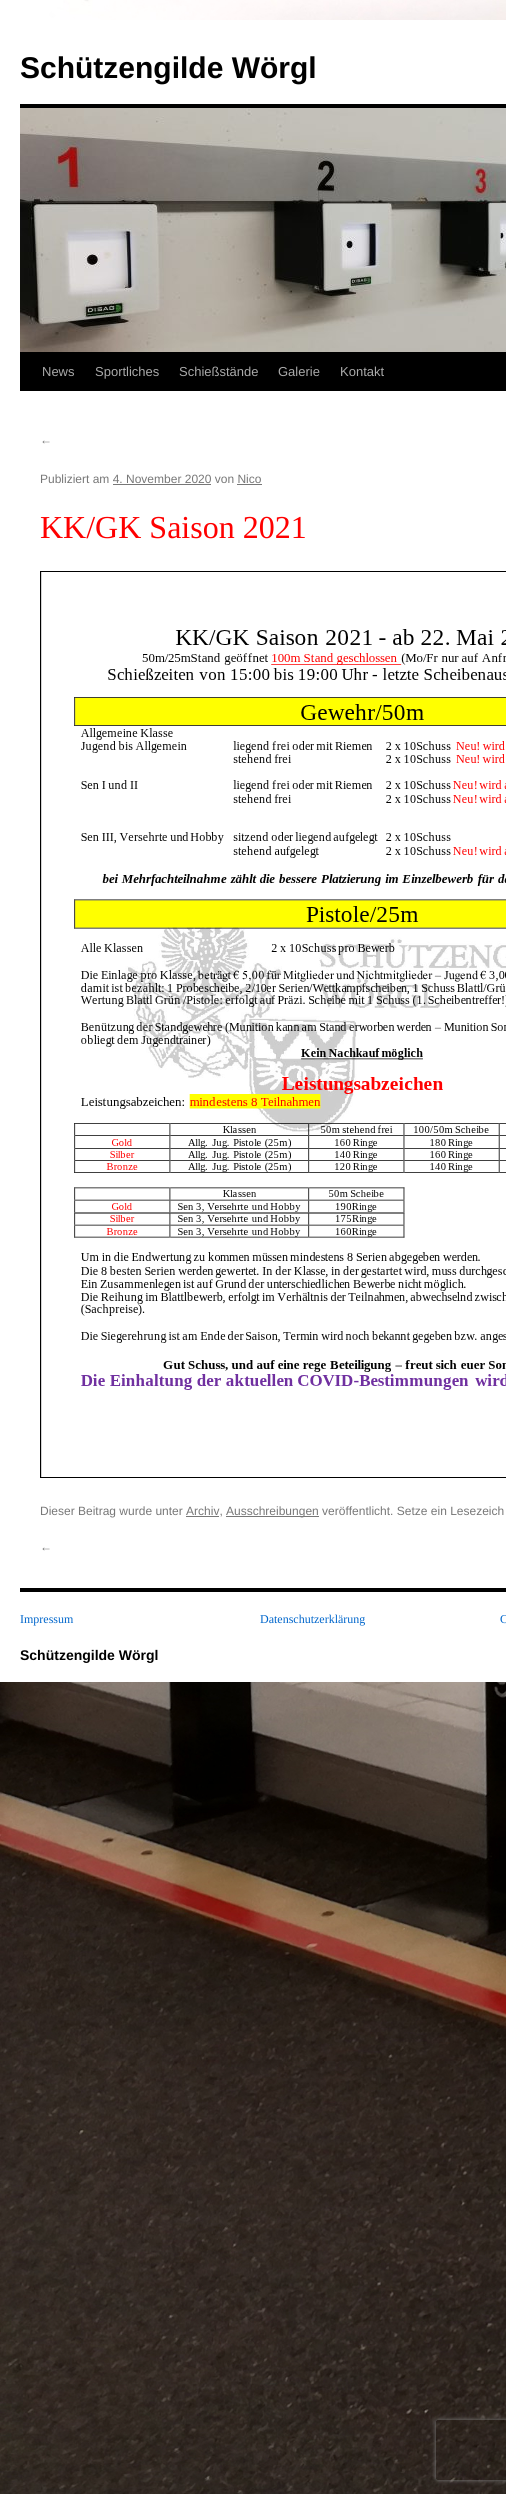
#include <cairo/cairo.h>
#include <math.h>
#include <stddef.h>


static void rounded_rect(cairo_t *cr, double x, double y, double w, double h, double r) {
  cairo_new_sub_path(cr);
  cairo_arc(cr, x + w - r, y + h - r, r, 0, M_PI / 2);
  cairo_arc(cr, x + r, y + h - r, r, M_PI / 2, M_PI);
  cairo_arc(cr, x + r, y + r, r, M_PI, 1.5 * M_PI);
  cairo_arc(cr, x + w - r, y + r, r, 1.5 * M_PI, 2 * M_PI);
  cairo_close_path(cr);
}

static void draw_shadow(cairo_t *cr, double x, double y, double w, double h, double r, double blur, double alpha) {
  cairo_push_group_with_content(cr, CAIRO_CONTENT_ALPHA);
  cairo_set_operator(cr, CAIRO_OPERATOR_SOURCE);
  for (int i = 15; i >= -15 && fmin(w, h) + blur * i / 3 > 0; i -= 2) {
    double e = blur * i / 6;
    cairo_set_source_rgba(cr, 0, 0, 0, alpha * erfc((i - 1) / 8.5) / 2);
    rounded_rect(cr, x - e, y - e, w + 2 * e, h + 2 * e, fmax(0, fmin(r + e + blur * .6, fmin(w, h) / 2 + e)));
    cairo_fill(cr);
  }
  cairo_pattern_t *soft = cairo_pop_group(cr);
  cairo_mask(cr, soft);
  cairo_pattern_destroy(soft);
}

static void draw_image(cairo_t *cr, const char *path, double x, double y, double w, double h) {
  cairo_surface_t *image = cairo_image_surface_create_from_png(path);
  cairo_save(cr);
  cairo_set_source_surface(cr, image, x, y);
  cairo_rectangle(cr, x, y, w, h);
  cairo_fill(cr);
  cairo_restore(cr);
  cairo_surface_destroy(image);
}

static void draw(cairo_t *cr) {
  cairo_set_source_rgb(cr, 1, 1, 1);
  cairo_paint(cr);
  draw_image(cr, "images/1.png", 0, 0, 506, 2494);
  cairo_set_source_rgb(cr, 1, 1, 1);
  cairo_rectangle(cr, 0, 20, 506, 1662);
  cairo_fill(cr);
  cairo_set_source_rgb(cr, 0, 0, 0);
  cairo_rectangle(cr, 20, 104, 486, 4);
  cairo_fill(cr);
  cairo_rectangle(cr, 20, 352, 486, 39);
  cairo_fill(cr);
  draw_image(cr, "images/2.png", 20, 108, 486, 244);
  cairo_set_source_rgb(cr, 119 / 255.0, 119 / 255.0, 119 / 255.0);
  cairo_rectangle(cr, 113, 484, 98, 1);
  cairo_fill(cr);
  cairo_rectangle(cr, 237, 484, 25, 1);
  cairo_fill(cr);
  cairo_set_source_rgb(cr, 211 / 255.0, 211 / 255.0, 211 / 255.0);
  cairo_rectangle(cr, 41, 572, 1, 905);
  cairo_fill(cr);
  cairo_rectangle(cr, 40.5, 571.5, 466, 906);
  cairo_set_source_rgb(cr, 0, 0, 0);
  cairo_set_line_width(cr, 1);
  cairo_stroke(cr);
  draw_image(cr, "images/3.png", 74, 629, 432, 761);
  cairo_set_source_rgb(cr, 119 / 255.0, 119 / 255.0, 119 / 255.0);
  cairo_rectangle(cr, 226, 1516, 93, 1);
  cairo_fill(cr);
  cairo_rectangle(cr, 186, 1516, 33, 1);
  cairo_fill(cr);
  cairo_set_source_rgb(cr, 0, 0, 0);
  cairo_rectangle(cr, 20, 1588, 486, 4);
  cairo_fill(cr);
  cairo_save(cr);
  cairo_set_fill_rule(cr, CAIRO_FILL_RULE_EVEN_ODD);
  cairo_new_path(cr);
  cairo_move_to(cr, 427, 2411);
  cairo_line_to(cr, 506, 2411);
  cairo_line_to(cr, 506, 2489);
  cairo_line_to(cr, 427, 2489);
  cairo_close_path(cr);
  cairo_move_to(cr, 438, 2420);
  cairo_line_to(cr, 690, 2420);
  cairo_curve_to(cr, 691, 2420, 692, 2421, 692, 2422);
  cairo_line_to(cr, 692, 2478);
  cairo_curve_to(cr, 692, 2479, 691, 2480, 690, 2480);
  cairo_line_to(cr, 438, 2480);
  cairo_curve_to(cr, 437, 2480, 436, 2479, 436, 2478);
  cairo_line_to(cr, 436, 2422);
  cairo_curve_to(cr, 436, 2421, 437, 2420, 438, 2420);
  cairo_close_path(cr);
  cairo_clip(cr);
  cairo_set_source_rgb(cr, 128 / 255.0, 128 / 255.0, 128 / 255.0);
  draw_shadow(cr, 436, 2420, 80, 60, 2, 2.5, 1);
  cairo_restore(cr);
  cairo_select_font_face(cr, "Liberation Sans", CAIRO_FONT_SLANT_NORMAL, CAIRO_FONT_WEIGHT_BOLD);
  cairo_set_font_size(cr, 30);
  cairo_move_to(cr, 20, 78);
  cairo_show_text(cr, "Schützengilde Wörgl");
  cairo_select_font_face(cr, "Liberation Sans", CAIRO_FONT_SLANT_NORMAL, CAIRO_FONT_WEIGHT_NORMAL);
  cairo_set_font_size(cr, 13);
  cairo_set_source_rgb(cr, 170 / 255.0, 170 / 255.0, 170 / 255.0);
  cairo_move_to(cr, 42, 376);
  cairo_show_text(cr, "News");
  cairo_move_to(cr, 95, 376);
  cairo_show_text(cr, "Sportliches");
  cairo_move_to(cr, 179, 376);
  cairo_show_text(cr, "Schießstände");
  cairo_move_to(cr, 278, 376);
  cairo_show_text(cr, "Galerie");
  cairo_move_to(cr, 340, 376);
  cairo_show_text(cr, "Kontakt");
  cairo_set_font_size(cr, 12);
  cairo_set_source_rgb(cr, 119 / 255.0, 119 / 255.0, 119 / 255.0);
  cairo_move_to(cr, 40, 444);
  cairo_show_text(cr, "←");
  cairo_move_to(cr, 40, 483);
  cairo_show_text(cr, "Publiziert am 4. November 2020 von Nico");
  cairo_select_font_face(cr, "Liberation Serif", CAIRO_FONT_SLANT_NORMAL, CAIRO_FONT_WEIGHT_NORMAL);
  cairo_set_font_size(cr, 32);
  cairo_set_source_rgb(cr, 1, 0, 0);
  cairo_move_to(cr, 40, 538);
  cairo_show_text(cr, "KK/GK Saison 2021");
  cairo_select_font_face(cr, "Liberation Sans", CAIRO_FONT_SLANT_NORMAL, CAIRO_FONT_WEIGHT_NORMAL);
  cairo_set_font_size(cr, 12);
  cairo_set_source_rgb(cr, 119 / 255.0, 119 / 255.0, 119 / 255.0);
  cairo_move_to(cr, 40, 1515);
  cairo_show_text(cr, "Dieser Beitrag wurde unter Archiv,");
  cairo_move_to(cr, 226, 1515);
  cairo_show_text(cr, "Ausschreibungen veröffentlicht. Setze ein Lesezeich");
  cairo_move_to(cr, 40, 1551);
  cairo_show_text(cr, "←");
  cairo_select_font_face(cr, "Liberation Serif", CAIRO_FONT_SLANT_NORMAL, CAIRO_FONT_WEIGHT_NORMAL);
  cairo_set_source_rgb(cr, 0, 102 / 255.0, 204 / 255.0);
  cairo_move_to(cr, 20, 1623);
  cairo_show_text(cr, "Impressum");
  cairo_move_to(cr, 260, 1623);
  cairo_show_text(cr, "Datenschutzerklärung");
  cairo_move_to(cr, 500, 1623);
  cairo_show_text(cr, "C");
  cairo_select_font_face(cr, "Liberation Sans", CAIRO_FONT_SLANT_NORMAL, CAIRO_FONT_WEIGHT_BOLD);
  cairo_set_font_size(cr, 14);
  cairo_set_source_rgb(cr, 0, 0, 0);
  cairo_move_to(cr, 20, 1660);
  cairo_show_text(cr, "Schützengilde Wörgl");
}

int main(void) {
  cairo_surface_t *surface = cairo_image_surface_create(CAIRO_FORMAT_RGB24, 506, 2494);
  cairo_t *cr = cairo_create(surface);
  cairo_font_options_t *options = cairo_font_options_create();
  cairo_font_options_set_hint_metrics(options, CAIRO_HINT_METRICS_OFF);
  cairo_font_options_set_hint_style(options, CAIRO_HINT_STYLE_NONE);
  cairo_set_font_options(cr, options);
  cairo_set_miter_limit(cr, 4);
  draw(cr);
  cairo_surface_write_to_png(surface, "out.png");
  cairo_font_options_destroy(options);
  cairo_destroy(cr);
  cairo_surface_destroy(surface);
  return 0;
}
